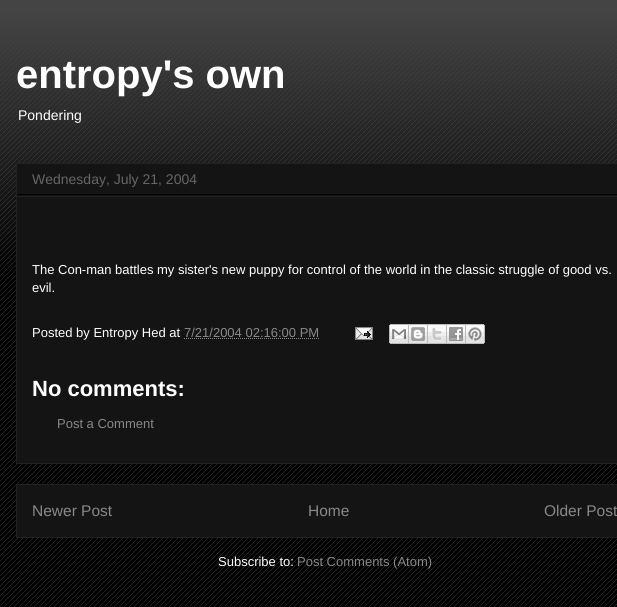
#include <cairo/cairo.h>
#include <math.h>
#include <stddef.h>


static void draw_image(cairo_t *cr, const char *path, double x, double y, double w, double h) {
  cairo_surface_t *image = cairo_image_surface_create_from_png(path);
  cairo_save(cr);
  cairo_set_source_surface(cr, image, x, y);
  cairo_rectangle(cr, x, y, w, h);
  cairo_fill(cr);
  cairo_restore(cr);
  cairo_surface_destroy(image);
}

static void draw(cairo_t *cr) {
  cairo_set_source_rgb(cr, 0, 0, 0);
  cairo_paint(cr);
  draw_image(cr, "images/1.png", 0, 13, 617, 594);
  draw_image(cr, "images/2.png", 0, 0, 617, 268);
  cairo_set_source_rgb(cr, 20 / 255.0, 20 / 255.0, 20 / 255.0);
  cairo_rectangle(cr, 16.5, 163.5, 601, 300);
  cairo_fill_preserve(cr);
  cairo_set_source_rgb(cr, 34 / 255.0, 34 / 255.0, 34 / 255.0);
  cairo_set_line_width(cr, 1);
  cairo_stroke(cr);
  cairo_set_source_rgb(cr, 0, 0, 0);
  cairo_rectangle(cr, 17, 194, 600, 1);
  cairo_fill(cr);
  cairo_set_source_rgb(cr, 34 / 255.0, 34 / 255.0, 34 / 255.0);
  cairo_rectangle(cr, 17, 196, 600, 1);
  cairo_fill(cr);
  cairo_new_path(cr);
  cairo_move_to(cr, 184, 338.5);
  cairo_line_to(cr, 319, 338.5);
  cairo_set_source_rgb(cr, 136 / 255.0, 136 / 255.0, 136 / 255.0);
  cairo_set_dash(cr, (double[]){1, 1}, 2, 0);
  cairo_stroke(cr);
  draw_image(cr, "images/3.png", 355, 327, 18, 13);
  draw_image(cr, "images/4.png", 389, 324, 20, 20);
  draw_image(cr, "images/5.png", 409, 324, 19, 20);
  draw_image(cr, "images/6.png", 428, 324, 19, 20);
  draw_image(cr, "images/7.png", 447, 324, 19, 20);
  draw_image(cr, "images/8.png", 466, 324, 19, 20);
  cairo_set_source_rgb(cr, 20 / 255.0, 20 / 255.0, 20 / 255.0);
  cairo_rectangle(cr, 16.5, 484.5, 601, 53);
  cairo_fill_preserve(cr);
  cairo_set_source_rgb(cr, 34 / 255.0, 34 / 255.0, 34 / 255.0);
  cairo_set_dash(cr, NULL, 0, 0);
  cairo_stroke(cr);
  cairo_select_font_face(cr, "Liberation Sans", CAIRO_FONT_SLANT_NORMAL, CAIRO_FONT_WEIGHT_BOLD);
  cairo_set_font_size(cr, 40);
  cairo_set_source_rgb(cr, 1, 1, 1);
  cairo_move_to(cr, 16, 88);
  cairo_show_text(cr, "entropy's own");
  cairo_select_font_face(cr, "Liberation Sans", CAIRO_FONT_SLANT_NORMAL, CAIRO_FONT_WEIGHT_NORMAL);
  cairo_set_font_size(cr, 14);
  cairo_move_to(cr, 18, 120);
  cairo_show_text(cr, "Pondering");
  cairo_set_source_rgb(cr, 102 / 255.0, 102 / 255.0, 102 / 255.0);
  cairo_move_to(cr, 32, 184);
  cairo_show_text(cr, "Wednesday, July 21, 2004");
  cairo_set_font_size(cr, 13);
  cairo_set_source_rgb(cr, 1, 1, 1);
  cairo_move_to(cr, 32, 274);
  cairo_show_text(cr, "The Con-man battles my sister's new puppy for control of the world in the classic struggle of good vs.");
  cairo_move_to(cr, 32, 292);
  cairo_show_text(cr, "evil.");
  cairo_move_to(cr, 32, 337);
  cairo_show_text(cr, "Posted by Entropy Hed at");
  cairo_set_source_rgb(cr, 136 / 255.0, 136 / 255.0, 136 / 255.0);
  cairo_move_to(cr, 184, 337);
  cairo_show_text(cr, "7/21/2004 02:16:00 PM");
  cairo_select_font_face(cr, "Liberation Sans", CAIRO_FONT_SLANT_NORMAL, CAIRO_FONT_WEIGHT_BOLD);
  cairo_set_font_size(cr, 22);
  cairo_set_source_rgb(cr, 1, 1, 1);
  cairo_move_to(cr, 32, 396);
  cairo_show_text(cr, "No comments:");
  cairo_select_font_face(cr, "Liberation Sans", CAIRO_FONT_SLANT_NORMAL, CAIRO_FONT_WEIGHT_NORMAL);
  cairo_set_font_size(cr, 13);
  cairo_set_source_rgb(cr, 136 / 255.0, 136 / 255.0, 136 / 255.0);
  cairo_move_to(cr, 57, 428);
  cairo_show_text(cr, "Post a Comment");
  cairo_set_font_size(cr, 15.5);
  cairo_move_to(cr, 32, 516);
  cairo_show_text(cr, "Newer Post");
  cairo_move_to(cr, 308, 516);
  cairo_show_text(cr, "Home");
  cairo_move_to(cr, 544, 516);
  cairo_show_text(cr, "Older Post");
  cairo_set_font_size(cr, 13);
  cairo_set_source_rgb(cr, 1, 1, 1);
  cairo_move_to(cr, 218, 566);
  cairo_show_text(cr, "Subscribe to:");
  cairo_set_source_rgb(cr, 136 / 255.0, 136 / 255.0, 136 / 255.0);
  cairo_move_to(cr, 297, 566);
  cairo_show_text(cr, "Post Comments (Atom)");
}

int main(void) {
  cairo_surface_t *surface = cairo_image_surface_create(CAIRO_FORMAT_RGB24, 617, 607);
  cairo_t *cr = cairo_create(surface);
  cairo_font_options_t *options = cairo_font_options_create();
  cairo_font_options_set_hint_metrics(options, CAIRO_HINT_METRICS_OFF);
  cairo_font_options_set_hint_style(options, CAIRO_HINT_STYLE_NONE);
  cairo_set_font_options(cr, options);
  cairo_set_miter_limit(cr, 4);
  draw(cr);
  cairo_surface_write_to_png(surface, "out.png");
  cairo_font_options_destroy(options);
  cairo_destroy(cr);
  cairo_surface_destroy(surface);
  return 0;
}
